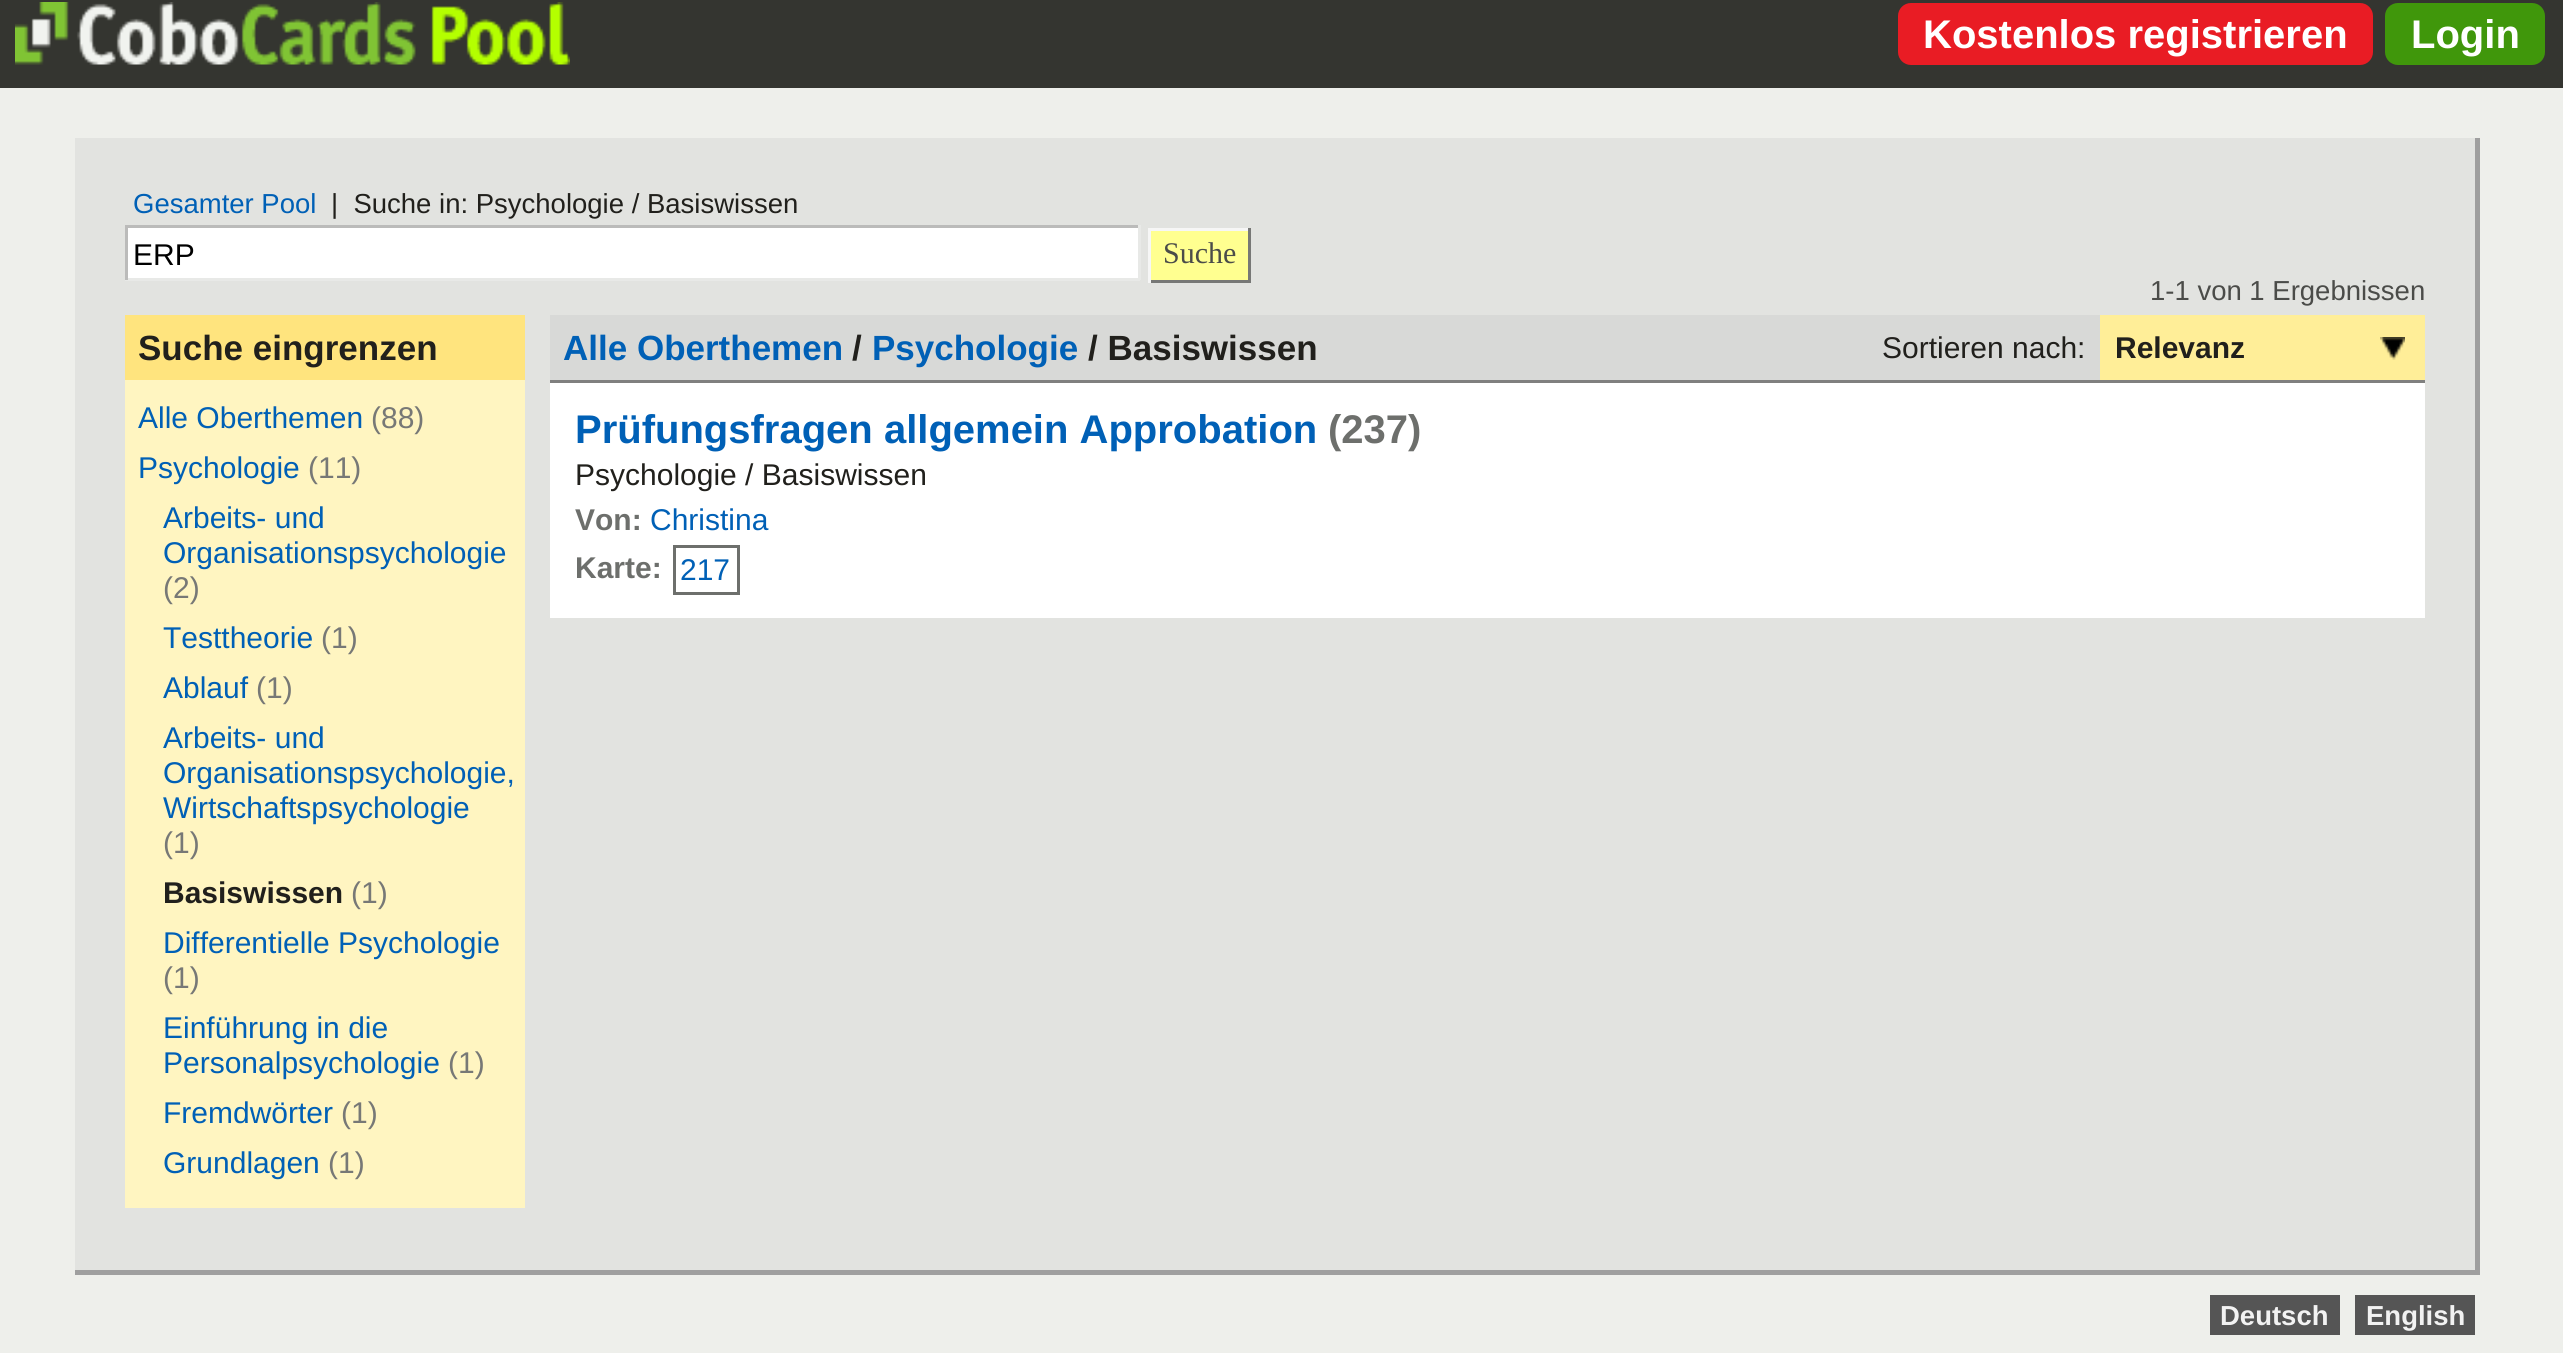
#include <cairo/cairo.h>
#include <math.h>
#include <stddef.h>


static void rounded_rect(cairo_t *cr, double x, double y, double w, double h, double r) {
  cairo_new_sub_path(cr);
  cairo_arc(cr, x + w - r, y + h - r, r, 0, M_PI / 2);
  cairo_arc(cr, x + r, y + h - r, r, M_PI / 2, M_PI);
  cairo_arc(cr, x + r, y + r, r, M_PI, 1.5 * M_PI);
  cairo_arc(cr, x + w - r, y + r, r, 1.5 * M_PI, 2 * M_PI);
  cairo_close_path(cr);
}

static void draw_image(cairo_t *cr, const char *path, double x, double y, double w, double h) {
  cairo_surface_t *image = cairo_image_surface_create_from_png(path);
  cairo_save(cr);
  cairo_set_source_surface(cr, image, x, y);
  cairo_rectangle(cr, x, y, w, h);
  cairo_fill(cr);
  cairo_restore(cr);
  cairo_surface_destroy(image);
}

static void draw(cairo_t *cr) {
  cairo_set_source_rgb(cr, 238 / 255.0, 239 / 255.0, 235 / 255.0);
  cairo_paint(cr);
  cairo_set_source_rgb(cr, 52 / 255.0, 53 / 255.0, 48 / 255.0);
  cairo_rectangle(cr, 0, 0, 2563, 88);
  cairo_fill(cr);
  draw_image(cr, "images/1.png", 15, 2, 555, 63);
  cairo_set_source_rgb(cr, 233 / 255.0, 28 / 255.0, 36 / 255.0);
  rounded_rect(cr, 1898, 3, 475, 62, 13);
  cairo_fill(cr);
  cairo_set_source_rgb(cr, 64 / 255.0, 151 / 255.0, 11 / 255.0);
  rounded_rect(cr, 2385, 3, 160, 62, 13);
  cairo_fill(cr);
  cairo_set_source_rgb(cr, 226 / 255.0, 227 / 255.0, 224 / 255.0);
  cairo_rectangle(cr, 75, 138, 2400, 1132);
  cairo_fill(cr);
  cairo_set_source_rgb(cr, 159 / 255.0, 159 / 255.0, 159 / 255.0);
  cairo_rectangle(cr, 2475, 138, 5, 1137);
  cairo_fill(cr);
  cairo_rectangle(cr, 75, 1270, 2405, 5);
  cairo_fill(cr);
  cairo_set_source_rgb(cr, 1, 1, 1);
  cairo_rectangle(cr, 128, 228, 1010, 50);
  cairo_fill(cr);
  cairo_set_source_rgb(cr, 187 / 255.0, 187 / 255.0, 186 / 255.0);
  cairo_rectangle(cr, 125, 225, 1015, 3);
  cairo_fill(cr);
  cairo_set_source_rgb(cr, 232 / 255.0, 233 / 255.0, 231 / 255.0);
  cairo_rectangle(cr, 1138, 225, 3, 55);
  cairo_fill(cr);
  cairo_rectangle(cr, 125, 278, 1015, 3);
  cairo_fill(cr);
  cairo_set_source_rgb(cr, 187 / 255.0, 187 / 255.0, 186 / 255.0);
  cairo_rectangle(cr, 125, 225, 3, 55);
  cairo_fill(cr);
  cairo_set_source_rgb(cr, 1, 1, 144 / 255.0);
  cairo_rectangle(cr, 1151, 231, 97, 49);
  cairo_fill(cr);
  cairo_set_source_rgb(cr, 246 / 255.0, 246 / 255.0, 246 / 255.0);
  cairo_rectangle(cr, 1148, 228, 102, 3);
  cairo_fill(cr);
  cairo_set_source_rgb(cr, 119 / 255.0, 120 / 255.0, 118 / 255.0);
  cairo_rectangle(cr, 1248, 228, 3, 55);
  cairo_fill(cr);
  cairo_rectangle(cr, 1148, 280, 102, 3);
  cairo_fill(cr);
  cairo_set_source_rgb(cr, 246 / 255.0, 246 / 255.0, 246 / 255.0);
  cairo_rectangle(cr, 1148, 228, 3, 55);
  cairo_fill(cr);
  cairo_set_source_rgb(cr, 1, 228 / 255.0, 126 / 255.0);
  cairo_rectangle(cr, 125, 315, 400, 65);
  cairo_fill(cr);
  cairo_set_source_rgb(cr, 1, 245 / 255.0, 193 / 255.0);
  cairo_rectangle(cr, 125, 380, 400, 828);
  cairo_fill(cr);
  cairo_set_source_rgb(cr, 216 / 255.0, 217 / 255.0, 215 / 255.0);
  cairo_rectangle(cr, 550, 315, 1550, 65);
  cairo_fill(cr);
  cairo_set_source_rgb(cr, 128 / 255.0, 128 / 255.0, 127 / 255.0);
  cairo_rectangle(cr, 550, 380, 1875, 3);
  cairo_fill(cr);
  cairo_set_source_rgb(cr, 1, 238 / 255.0, 152 / 255.0);
  cairo_rectangle(cr, 2100, 315, 325, 65);
  cairo_fill(cr);
  draw_image(cr, "images/2.png", 2380, 337, 25, 23);
  cairo_set_source_rgb(cr, 1, 1, 1);
  cairo_rectangle(cr, 550, 383, 1875, 235);
  cairo_fill(cr);
  cairo_rectangle(cr, 674.5, 546.5, 64, 47);
  cairo_set_source_rgb(cr, 109 / 255.0, 111 / 255.0, 108 / 255.0);
  cairo_set_line_width(cr, 3);
  cairo_stroke(cr);
  cairo_set_source_rgb(cr, 85 / 255.0, 85 / 255.0, 85 / 255.0);
  cairo_rectangle(cr, 2210, 1295, 130, 40);
  cairo_fill(cr);
  cairo_rectangle(cr, 2355, 1295, 120, 40);
  cairo_fill(cr);
  cairo_select_font_face(cr, "Liberation Sans", CAIRO_FONT_SLANT_NORMAL, CAIRO_FONT_WEIGHT_BOLD);
  cairo_set_font_size(cr, 40);
  cairo_set_source_rgb(cr, 1, 1, 1);
  cairo_move_to(cr, 1923, 48);
  cairo_show_text(cr, "Kostenlos registrieren");
  cairo_move_to(cr, 2411, 48);
  cairo_show_text(cr, "Login");
  cairo_select_font_face(cr, "Liberation Sans", CAIRO_FONT_SLANT_NORMAL, CAIRO_FONT_WEIGHT_NORMAL);
  cairo_set_font_size(cr, 27.5);
  cairo_set_source_rgb(cr, 0, 96 / 255.0, 182 / 255.0);
  cairo_move_to(cr, 133, 213);
  cairo_show_text(cr, "Gesamter Pool");
  cairo_set_source_rgb(cr, 33 / 255.0, 32 / 255.0, 28 / 255.0);
  cairo_move_to(cr, 331, 213);
  cairo_show_text(cr, "|  Suche in: Psychologie / Basiswissen");
  cairo_set_font_size(cr, 30);
  cairo_set_source_rgb(cr, 0, 0, 0);
  cairo_move_to(cr, 133, 265);
  cairo_show_text(cr, "ERP");
  cairo_select_font_face(cr, "Liberation Serif", CAIRO_FONT_SLANT_NORMAL, CAIRO_FONT_WEIGHT_NORMAL);
  cairo_set_source_rgb(cr, 75 / 255.0, 76 / 255.0, 73 / 255.0);
  cairo_move_to(cr, 1163, 263);
  cairo_show_text(cr, "Suche");
  cairo_select_font_face(cr, "Liberation Sans", CAIRO_FONT_SLANT_NORMAL, CAIRO_FONT_WEIGHT_BOLD);
  cairo_set_font_size(cr, 35);
  cairo_set_source_rgb(cr, 33 / 255.0, 32 / 255.0, 28 / 255.0);
  cairo_move_to(cr, 138, 360);
  cairo_show_text(cr, "Suche eingrenzen");
  cairo_select_font_face(cr, "Liberation Sans", CAIRO_FONT_SLANT_NORMAL, CAIRO_FONT_WEIGHT_NORMAL);
  cairo_set_font_size(cr, 30);
  cairo_set_source_rgb(cr, 0, 96 / 255.0, 182 / 255.0);
  cairo_move_to(cr, 138, 428);
  cairo_show_text(cr, "Alle Oberthemen");
  cairo_set_source_rgb(cr, 119 / 255.0, 120 / 255.0, 118 / 255.0);
  cairo_move_to(cr, 371, 428);
  cairo_show_text(cr, "(88)");
  cairo_set_source_rgb(cr, 0, 96 / 255.0, 182 / 255.0);
  cairo_move_to(cr, 138, 478);
  cairo_show_text(cr, "Psychologie");
  cairo_set_source_rgb(cr, 119 / 255.0, 120 / 255.0, 118 / 255.0);
  cairo_move_to(cr, 308, 478);
  cairo_show_text(cr, "(11)");
  cairo_set_source_rgb(cr, 0, 96 / 255.0, 182 / 255.0);
  cairo_move_to(cr, 163, 528);
  cairo_show_text(cr, "Arbeits- und");
  cairo_move_to(cr, 163, 563);
  cairo_show_text(cr, "Organisationspsychologie");
  cairo_set_source_rgb(cr, 119 / 255.0, 120 / 255.0, 118 / 255.0);
  cairo_move_to(cr, 163, 598);
  cairo_show_text(cr, "(2)");
  cairo_set_source_rgb(cr, 0, 96 / 255.0, 182 / 255.0);
  cairo_move_to(cr, 163, 648);
  cairo_show_text(cr, "Testtheorie");
  cairo_set_source_rgb(cr, 119 / 255.0, 120 / 255.0, 118 / 255.0);
  cairo_move_to(cr, 321, 648);
  cairo_show_text(cr, "(1)");
  cairo_set_source_rgb(cr, 0, 96 / 255.0, 182 / 255.0);
  cairo_move_to(cr, 163, 698);
  cairo_show_text(cr, "Ablauf");
  cairo_set_source_rgb(cr, 119 / 255.0, 120 / 255.0, 118 / 255.0);
  cairo_move_to(cr, 256, 698);
  cairo_show_text(cr, "(1)");
  cairo_set_source_rgb(cr, 0, 96 / 255.0, 182 / 255.0);
  cairo_move_to(cr, 163, 748);
  cairo_show_text(cr, "Arbeits- und");
  cairo_move_to(cr, 163, 783);
  cairo_show_text(cr, "Organisationspsychologie,");
  cairo_move_to(cr, 163, 818);
  cairo_show_text(cr, "Wirtschaftspsychologie");
  cairo_set_source_rgb(cr, 119 / 255.0, 120 / 255.0, 118 / 255.0);
  cairo_move_to(cr, 163, 853);
  cairo_show_text(cr, "(1)");
  cairo_select_font_face(cr, "Liberation Sans", CAIRO_FONT_SLANT_NORMAL, CAIRO_FONT_WEIGHT_BOLD);
  cairo_set_source_rgb(cr, 33 / 255.0, 32 / 255.0, 28 / 255.0);
  cairo_move_to(cr, 163, 903);
  cairo_show_text(cr, "Basiswissen");
  cairo_select_font_face(cr, "Liberation Sans", CAIRO_FONT_SLANT_NORMAL, CAIRO_FONT_WEIGHT_NORMAL);
  cairo_set_source_rgb(cr, 119 / 255.0, 120 / 255.0, 118 / 255.0);
  cairo_move_to(cr, 351, 903);
  cairo_show_text(cr, "(1)");
  cairo_set_source_rgb(cr, 0, 96 / 255.0, 182 / 255.0);
  cairo_move_to(cr, 163, 953);
  cairo_show_text(cr, "Differentielle Psychologie");
  cairo_set_source_rgb(cr, 119 / 255.0, 120 / 255.0, 118 / 255.0);
  cairo_move_to(cr, 163, 988);
  cairo_show_text(cr, "(1)");
  cairo_set_source_rgb(cr, 0, 96 / 255.0, 182 / 255.0);
  cairo_move_to(cr, 163, 1038);
  cairo_show_text(cr, "Einführung in die");
  cairo_move_to(cr, 163, 1073);
  cairo_show_text(cr, "Personalpsychologie");
  cairo_set_source_rgb(cr, 119 / 255.0, 120 / 255.0, 118 / 255.0);
  cairo_move_to(cr, 448, 1073);
  cairo_show_text(cr, "(1)");
  cairo_set_source_rgb(cr, 0, 96 / 255.0, 182 / 255.0);
  cairo_move_to(cr, 163, 1123);
  cairo_show_text(cr, "Fremdwörter");
  cairo_set_source_rgb(cr, 119 / 255.0, 120 / 255.0, 118 / 255.0);
  cairo_move_to(cr, 341, 1123);
  cairo_show_text(cr, "(1)");
  cairo_set_source_rgb(cr, 0, 96 / 255.0, 182 / 255.0);
  cairo_move_to(cr, 163, 1173);
  cairo_show_text(cr, "Grundlagen");
  cairo_set_source_rgb(cr, 119 / 255.0, 120 / 255.0, 118 / 255.0);
  cairo_move_to(cr, 328, 1173);
  cairo_show_text(cr, "(1)");
  cairo_set_font_size(cr, 27.5);
  cairo_set_source_rgb(cr, 75 / 255.0, 76 / 255.0, 73 / 255.0);
  cairo_move_to(cr, 2150, 300);
  cairo_show_text(cr, "1-1 von 1 Ergebnissen");
  cairo_select_font_face(cr, "Liberation Sans", CAIRO_FONT_SLANT_NORMAL, CAIRO_FONT_WEIGHT_BOLD);
  cairo_set_font_size(cr, 35);
  cairo_set_source_rgb(cr, 0, 96 / 255.0, 182 / 255.0);
  cairo_move_to(cr, 563, 360);
  cairo_show_text(cr, "Alle Oberthemen");
  cairo_set_source_rgb(cr, 33 / 255.0, 32 / 255.0, 28 / 255.0);
  cairo_move_to(cr, 852, 360);
  cairo_show_text(cr, "/");
  cairo_set_source_rgb(cr, 0, 96 / 255.0, 182 / 255.0);
  cairo_move_to(cr, 872, 360);
  cairo_show_text(cr, "Psychologie");
  cairo_set_source_rgb(cr, 33 / 255.0, 32 / 255.0, 28 / 255.0);
  cairo_move_to(cr, 1088, 360);
  cairo_show_text(cr, "/ Basiswissen");
  cairo_select_font_face(cr, "Liberation Sans", CAIRO_FONT_SLANT_NORMAL, CAIRO_FONT_WEIGHT_NORMAL);
  cairo_set_font_size(cr, 30);
  cairo_move_to(cr, 1882, 358);
  cairo_show_text(cr, "Sortieren nach:");
  cairo_select_font_face(cr, "Liberation Sans", CAIRO_FONT_SLANT_NORMAL, CAIRO_FONT_WEIGHT_BOLD);
  cairo_move_to(cr, 2115, 358);
  cairo_show_text(cr, "Relevanz");
  cairo_set_font_size(cr, 40);
  cairo_set_source_rgb(cr, 0, 96 / 255.0, 182 / 255.0);
  cairo_move_to(cr, 575, 443);
  cairo_show_text(cr, "Prüfungsfragen allgemein Approbation");
  cairo_set_source_rgb(cr, 109 / 255.0, 111 / 255.0, 108 / 255.0);
  cairo_move_to(cr, 1328, 443);
  cairo_show_text(cr, "(237)");
  cairo_select_font_face(cr, "Liberation Sans", CAIRO_FONT_SLANT_NORMAL, CAIRO_FONT_WEIGHT_NORMAL);
  cairo_set_font_size(cr, 30);
  cairo_set_source_rgb(cr, 33 / 255.0, 32 / 255.0, 28 / 255.0);
  cairo_move_to(cr, 575, 485);
  cairo_show_text(cr, "Psychologie / Basiswissen");
  cairo_select_font_face(cr, "Liberation Sans", CAIRO_FONT_SLANT_NORMAL, CAIRO_FONT_WEIGHT_BOLD);
  cairo_set_source_rgb(cr, 109 / 255.0, 111 / 255.0, 108 / 255.0);
  cairo_move_to(cr, 575, 530);
  cairo_show_text(cr, "Von:");
  cairo_select_font_face(cr, "Liberation Sans", CAIRO_FONT_SLANT_NORMAL, CAIRO_FONT_WEIGHT_NORMAL);
  cairo_set_source_rgb(cr, 0, 96 / 255.0, 182 / 255.0);
  cairo_move_to(cr, 650, 530);
  cairo_show_text(cr, "Christina");
  cairo_select_font_face(cr, "Liberation Sans", CAIRO_FONT_SLANT_NORMAL, CAIRO_FONT_WEIGHT_BOLD);
  cairo_set_source_rgb(cr, 109 / 255.0, 111 / 255.0, 108 / 255.0);
  cairo_move_to(cr, 575, 578);
  cairo_show_text(cr, "Karte:");
  cairo_select_font_face(cr, "Liberation Sans", CAIRO_FONT_SLANT_NORMAL, CAIRO_FONT_WEIGHT_NORMAL);
  cairo_set_source_rgb(cr, 0, 96 / 255.0, 182 / 255.0);
  cairo_move_to(cr, 680, 580);
  cairo_show_text(cr, "217");
  cairo_select_font_face(cr, "Liberation Sans", CAIRO_FONT_SLANT_NORMAL, CAIRO_FONT_WEIGHT_BOLD);
  cairo_set_font_size(cr, 27.5);
  cairo_set_source_rgb(cr, 242 / 255.0, 242 / 255.0, 242 / 255.0);
  cairo_move_to(cr, 2220, 1325);
  cairo_show_text(cr, "Deutsch");
  cairo_move_to(cr, 2366, 1325);
  cairo_show_text(cr, "English");
}

int main(void) {
  cairo_surface_t *surface = cairo_image_surface_create(CAIRO_FORMAT_RGB24, 2563, 1353);
  cairo_t *cr = cairo_create(surface);
  cairo_font_options_t *options = cairo_font_options_create();
  cairo_font_options_set_hint_metrics(options, CAIRO_HINT_METRICS_OFF);
  cairo_font_options_set_hint_style(options, CAIRO_HINT_STYLE_NONE);
  cairo_set_font_options(cr, options);
  cairo_set_miter_limit(cr, 4);
  draw(cr);
  cairo_surface_write_to_png(surface, "out.png");
  cairo_font_options_destroy(options);
  cairo_destroy(cr);
  cairo_surface_destroy(surface);
  return 0;
}
